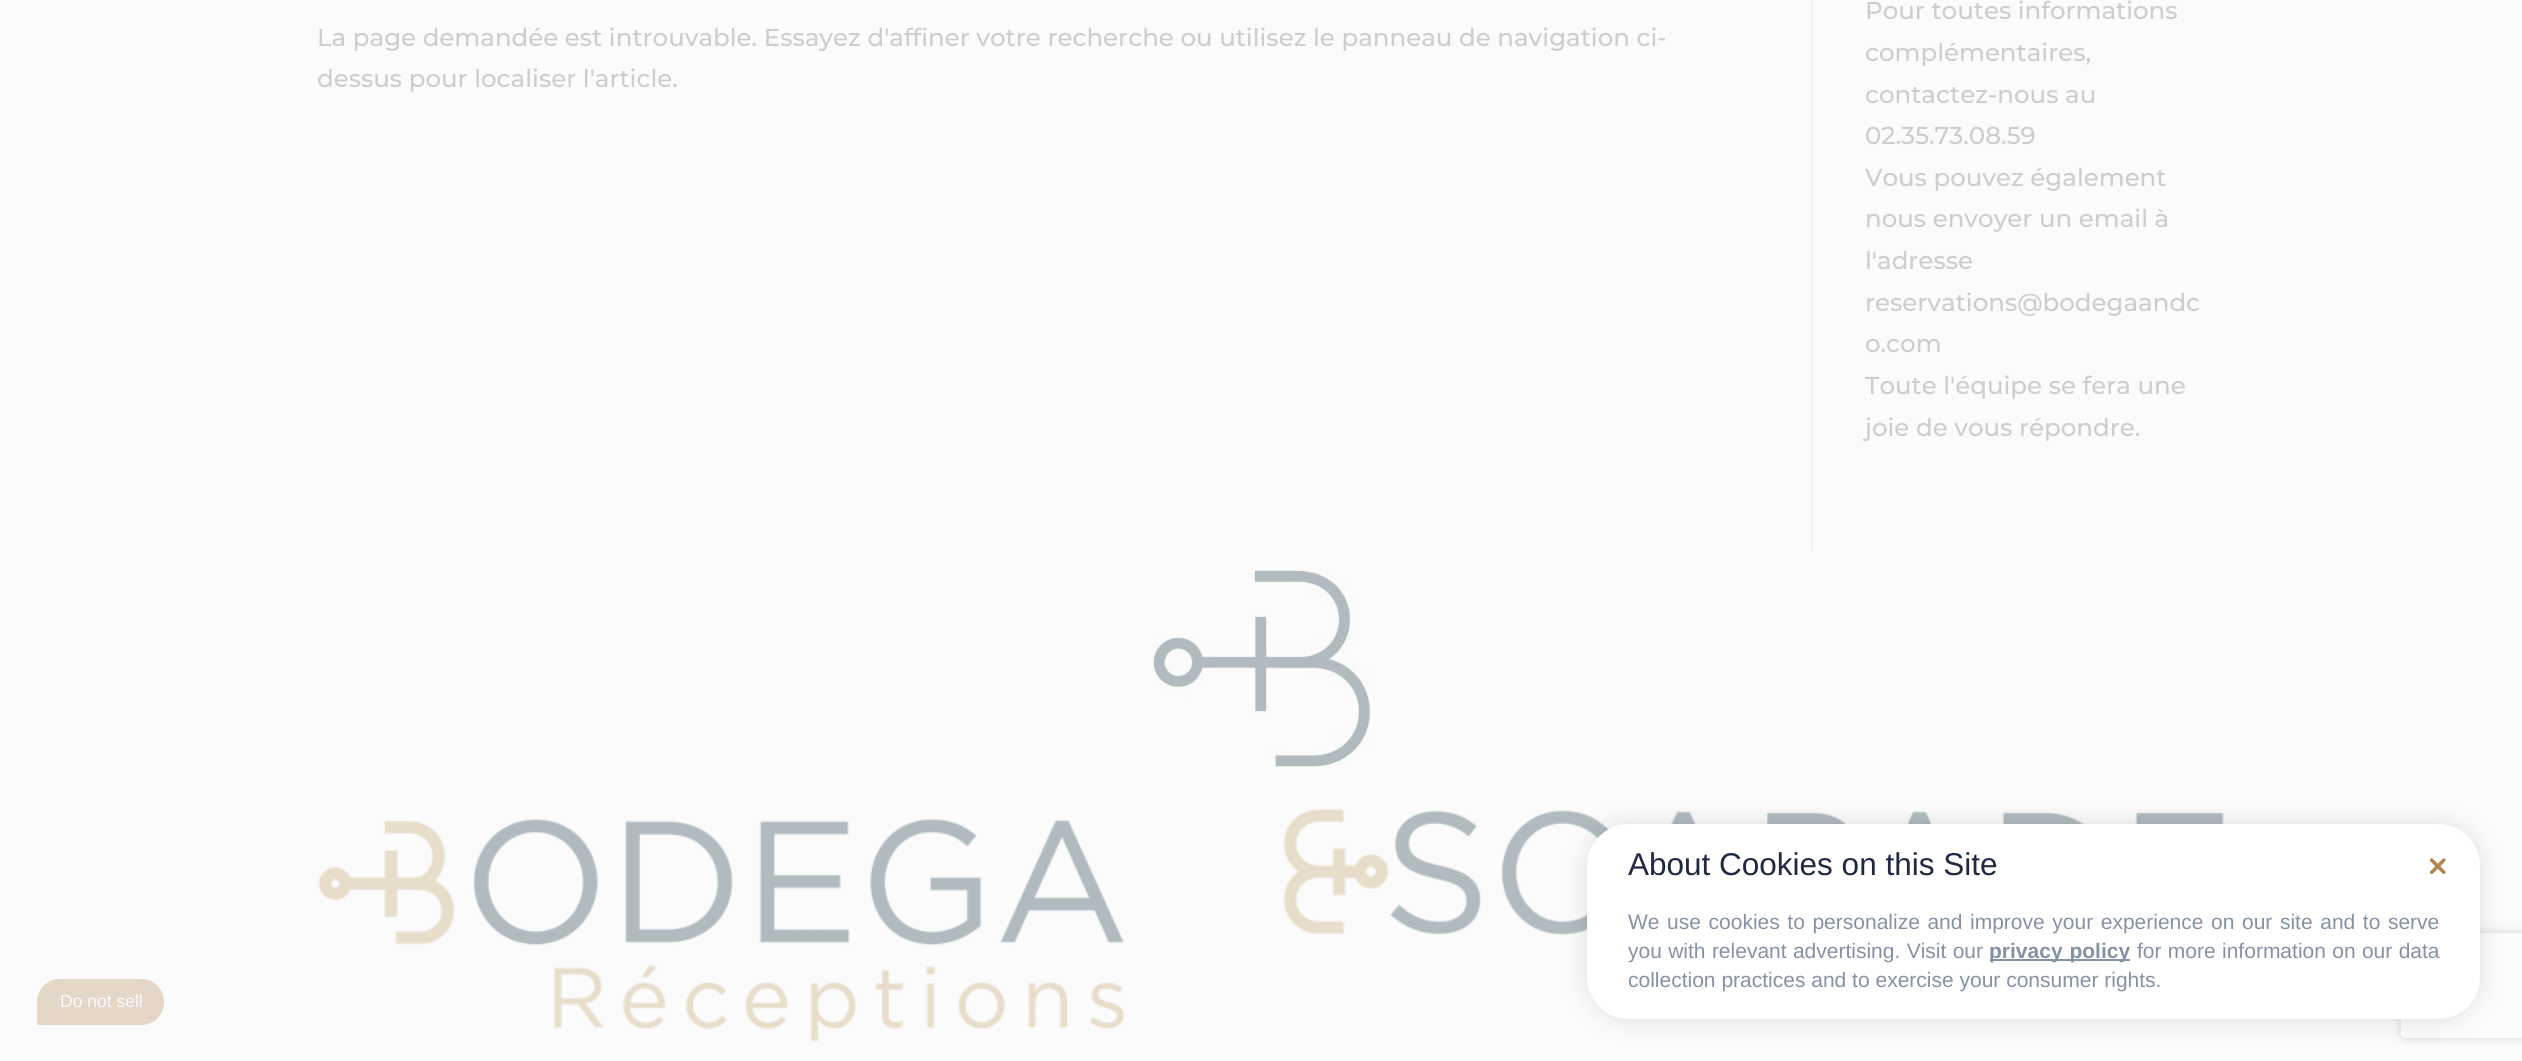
#include <cairo/cairo.h>
#include <math.h>
#include <stddef.h>


static void draw_spaced(cairo_t *cr, double x, double y, const char *s, double letter, double word) {
  cairo_move_to(cr, x, y);
  while (*s) {
    char ch[5] = {0};
    int n = 0;
    do ch[n++] = *s++; while ((*s & 0xC0) == 0x80);
    cairo_show_text(cr, ch);
    cairo_rel_move_to(cr, letter + word * (*ch == ' '), 0);
  }
}

static void rounded_rect(cairo_t *cr, double x, double y, double w, double h, double r) {
  cairo_new_sub_path(cr);
  cairo_arc(cr, x + w - r, y + h - r, r, 0, M_PI / 2);
  cairo_arc(cr, x + r, y + h - r, r, M_PI / 2, M_PI);
  cairo_arc(cr, x + r, y + r, r, M_PI, 1.5 * M_PI);
  cairo_arc(cr, x + w - r, y + r, r, 1.5 * M_PI, 2 * M_PI);
  cairo_close_path(cr);
}

static void draw_shadow(cairo_t *cr, double x, double y, double w, double h, double r, double blur, double alpha) {
  cairo_push_group_with_content(cr, CAIRO_CONTENT_ALPHA);
  cairo_set_operator(cr, CAIRO_OPERATOR_SOURCE);
  for (int i = 15; i >= -15 && fmin(w, h) + blur * i / 3 > 0; i -= 2) {
    double e = blur * i / 6;
    cairo_set_source_rgba(cr, 0, 0, 0, alpha * erfc((i - 1) / 8.5) / 2);
    rounded_rect(cr, x - e, y - e, w + 2 * e, h + 2 * e, fmax(0, fmin(r + e + blur * .6, fmin(w, h) / 2 + e)));
    cairo_fill(cr);
  }
  cairo_pattern_t *soft = cairo_pop_group(cr);
  cairo_mask(cr, soft);
  cairo_pattern_destroy(soft);
}

static void draw_image(cairo_t *cr, const char *path, double x, double y, double w, double h) {
  cairo_surface_t *image = cairo_image_surface_create_from_png(path);
  cairo_save(cr);
  cairo_set_source_surface(cr, image, x, y);
  cairo_rectangle(cr, x, y, w, h);
  cairo_fill(cr);
  cairo_restore(cr);
  cairo_surface_destroy(image);
}

static void draw(cairo_t *cr) {
  cairo_set_source_rgb(cr, 251 / 255.0, 251 / 255.0, 251 / 255.0);
  cairo_paint(cr);
  cairo_set_source_rgb(cr, 242 / 255.0, 242 / 255.0, 242 / 255.0);
  cairo_rectangle(cr, 1811, 0, 2, 551);
  cairo_fill(cr);
  draw_image(cr, "images/1.png", 1153, 570, 218, 197);
  draw_image(cr, "images/2.png", 318, 819, 807, 223);
  draw_image(cr, "images/3.png", 1283, 809, 946, 211);
  cairo_save(cr);
  cairo_set_fill_rule(cr, CAIRO_FILL_RULE_EVEN_ODD);
  cairo_new_path(cr);
  cairo_move_to(cr, 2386, 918);
  cairo_line_to(cr, 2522, 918);
  cairo_line_to(cr, 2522, 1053);
  cairo_line_to(cr, 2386, 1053);
  cairo_close_path(cr);
  cairo_move_to(cr, 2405, 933);
  cairo_line_to(cr, 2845, 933);
  cairo_curve_to(cr, 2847, 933, 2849, 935, 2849, 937);
  cairo_line_to(cr, 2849, 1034);
  cairo_curve_to(cr, 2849, 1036, 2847, 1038, 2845, 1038);
  cairo_line_to(cr, 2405, 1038);
  cairo_curve_to(cr, 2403, 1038, 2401, 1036, 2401, 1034);
  cairo_line_to(cr, 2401, 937);
  cairo_curve_to(cr, 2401, 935, 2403, 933, 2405, 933);
  cairo_close_path(cr);
  cairo_clip(cr);
  cairo_set_source_rgb(cr, 213 / 255.0, 213 / 255.0, 213 / 255.0);
  draw_shadow(cr, 2401, 933, 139, 105, 4, 4.5, 1);
  cairo_restore(cr);
  cairo_set_source_rgb(cr, 0, 0, 0);
  draw_shadow(cr, 1587, 824, 893, 195, 42, 13, 0.12);
  cairo_set_source_rgb(cr, 1, 1, 1);
  rounded_rect(cr, 1587, 824, 893, 195, 42);
  cairo_fill(cr);
  cairo_set_source_rgb(cr, 178 / 255.0, 134 / 255.0, 81 / 255.0);
  cairo_new_path(cr);
  cairo_move_to(cr, 2433, 859);
  cairo_line_to(cr, 2445.5, 871.5);
  cairo_line_to(cr, 2445.5, 873);
  cairo_curve_to(cr, 2444.5, 876, 2441.5, 872.5, 2440.5, 871.5);
  cairo_line_to(cr, 2432.5, 863.5);
  cairo_curve_to(cr, 2431.5, 862.5, 2428.5, 860.5, 2430.5, 859);
  cairo_curve_to(cr, 2431, 858, 2432, 858, 2433, 859);
  cairo_close_path(cr);
  cairo_fill(cr);
  cairo_new_path(cr);
  cairo_move_to(cr, 2430.5, 871);
  cairo_line_to(cr, 2443, 858.5);
  cairo_line_to(cr, 2444.5, 858.5);
  cairo_curve_to(cr, 2447.5, 859.5, 2444, 862.5, 2443, 863.5);
  cairo_line_to(cr, 2435, 871.5);
  cairo_curve_to(cr, 2434, 872.5, 2432, 875.5, 2430.5, 873.5);
  cairo_curve_to(cr, 2429.5, 873, 2429.5, 872, 2430.5, 871);
  cairo_close_path(cr);
  cairo_fill(cr);
  cairo_set_source_rgb(cr, 132 / 255.0, 146 / 255.0, 166 / 255.0);
  cairo_rectangle(cr, 1990, 959, 140, 2);
  cairo_fill(cr);
  cairo_set_source_rgb(cr, 228 / 255.0, 215 / 255.0, 199 / 255.0);
  cairo_new_path(cr);
  cairo_move_to(cr, 60, 978);
  cairo_line_to(cr, 141, 978);
  cairo_curve_to(cr, 154.5, 978, 165, 988.5, 165, 1002);
  cairo_curve_to(cr, 165, 1015.5, 154.5, 1026, 141, 1026);
  cairo_line_to(cr, 36, 1026);
  cairo_line_to(cr, 36, 1002);
  cairo_curve_to(cr, 36, 988.5, 46.5, 978, 60, 978);
  cairo_close_path(cr);
  cairo_fill_preserve(cr);
  cairo_set_source_rgb(cr, 251 / 255.0, 251 / 255.0, 251 / 255.0);
  cairo_stroke(cr);
  cairo_select_font_face(cr, "Montserrat Medium", CAIRO_FONT_SLANT_NORMAL, CAIRO_FONT_WEIGHT_NORMAL);
  cairo_set_font_size(cr, 24.5);
  cairo_set_source_rgb(cr, 205 / 255.0, 205 / 255.0, 205 / 255.0);
  cairo_move_to(cr, 317, 46);
  cairo_show_text(cr, "La page demandée est introuvable. Essayez d'affiner votre recherche ou utilisez le panneau de navigation ci-");
  cairo_move_to(cr, 317, 87);
  cairo_show_text(cr, "dessus pour localiser l'article.");
  cairo_move_to(cr, 1865, 19);
  cairo_show_text(cr, "Pour toutes informations");
  cairo_move_to(cr, 1865, 61);
  cairo_show_text(cr, "complémentaires,");
  cairo_move_to(cr, 1865, 103);
  cairo_show_text(cr, "contactez-nous au");
  cairo_move_to(cr, 1865, 144);
  cairo_show_text(cr, "02.35.73.08.59");
  cairo_move_to(cr, 1865, 186);
  cairo_show_text(cr, "Vous pouvez également");
  cairo_move_to(cr, 1865, 227);
  cairo_show_text(cr, "nous envoyer un email à");
  cairo_move_to(cr, 1865, 269);
  cairo_show_text(cr, "l'adresse");
  cairo_move_to(cr, 1865, 311);
  cairo_show_text(cr, "reservations@bodegaandc");
  cairo_move_to(cr, 1865, 352);
  cairo_show_text(cr, "o.com");
  cairo_move_to(cr, 1865, 394);
  cairo_show_text(cr, "Toute l'équipe se fera une");
  cairo_move_to(cr, 1865, 436);
  cairo_show_text(cr, "joie de vous répondre.");
  cairo_select_font_face(cr, "Liberation Sans", CAIRO_FONT_SLANT_NORMAL, CAIRO_FONT_WEIGHT_NORMAL);
  cairo_set_font_size(cr, 31.5);
  cairo_set_source_rgb(cr, 32 / 255.0, 41 / 255.0, 66 / 255.0);
  cairo_move_to(cr, 1628, 875);
  cairo_show_text(cr, "About Cookies on this Site");
  cairo_set_font_size(cr, 21);
  cairo_set_source_rgb(cr, 132 / 255.0, 146 / 255.0, 166 / 255.0);
  draw_spaced(cr, 1628, 929, "We use cookies to personalize and improve your experience on our site and to serve", 0, 1.75);
  draw_spaced(cr, 1628, 958, "you with relevant advertising. Visit our", 0, 0.5);
  cairo_select_font_face(cr, "Liberation Sans", CAIRO_FONT_SLANT_NORMAL, CAIRO_FONT_WEIGHT_BOLD);
  draw_spaced(cr, 1989, 958, "privacy policy", 0, 1);
  cairo_select_font_face(cr, "Liberation Sans", CAIRO_FONT_SLANT_NORMAL, CAIRO_FONT_WEIGHT_NORMAL);
  draw_spaced(cr, 2137, 958, "for more information on our data", 0, 0.5);
  cairo_move_to(cr, 1628, 987);
  cairo_show_text(cr, "collection practices and to exercise your consumer rights.");
  cairo_set_font_size(cr, 17.5);
  cairo_set_source_rgb(cr, 251 / 255.0, 251 / 255.0, 251 / 255.0);
  cairo_move_to(cr, 60, 1007);
  cairo_show_text(cr, "Do not sell");
}

int main(void) {
  cairo_surface_t *surface = cairo_image_surface_create(CAIRO_FORMAT_RGB24, 2522, 1061);
  cairo_t *cr = cairo_create(surface);
  cairo_font_options_t *options = cairo_font_options_create();
  cairo_font_options_set_hint_metrics(options, CAIRO_HINT_METRICS_OFF);
  cairo_font_options_set_hint_style(options, CAIRO_HINT_STYLE_NONE);
  cairo_set_font_options(cr, options);
  cairo_set_miter_limit(cr, 4);
  draw(cr);
  cairo_surface_write_to_png(surface, "out.png");
  cairo_font_options_destroy(options);
  cairo_destroy(cr);
  cairo_surface_destroy(surface);
  return 0;
}
